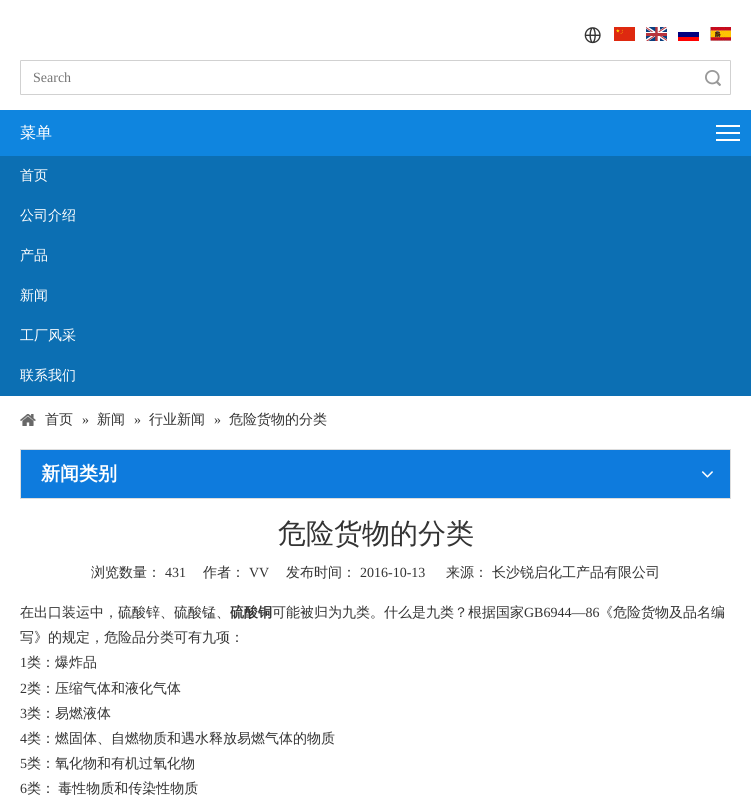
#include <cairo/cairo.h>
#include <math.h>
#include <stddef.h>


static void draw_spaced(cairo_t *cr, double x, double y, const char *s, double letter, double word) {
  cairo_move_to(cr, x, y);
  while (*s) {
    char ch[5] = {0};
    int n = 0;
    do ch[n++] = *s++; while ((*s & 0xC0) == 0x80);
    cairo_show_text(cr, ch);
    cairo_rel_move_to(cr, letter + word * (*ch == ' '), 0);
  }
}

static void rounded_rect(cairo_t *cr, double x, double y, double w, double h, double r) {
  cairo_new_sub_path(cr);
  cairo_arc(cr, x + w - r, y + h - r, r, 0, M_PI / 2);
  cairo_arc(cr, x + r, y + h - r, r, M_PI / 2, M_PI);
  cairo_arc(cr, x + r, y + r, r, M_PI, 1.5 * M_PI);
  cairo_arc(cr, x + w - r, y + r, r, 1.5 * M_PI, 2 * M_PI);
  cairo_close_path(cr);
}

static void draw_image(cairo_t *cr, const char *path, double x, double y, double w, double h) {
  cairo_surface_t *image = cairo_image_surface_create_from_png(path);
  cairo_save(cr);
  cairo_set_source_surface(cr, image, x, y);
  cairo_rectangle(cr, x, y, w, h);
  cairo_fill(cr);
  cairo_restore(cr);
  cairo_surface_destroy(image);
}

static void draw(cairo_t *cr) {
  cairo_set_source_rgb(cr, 1, 1, 1);
  cairo_paint(cr);
  draw_image(cr, "images/1.png", 584, 27, 17, 17);
  draw_image(cr, "images/2.png", 614, 27, 21, 14);
  draw_image(cr, "images/3.png", 646, 27, 21, 14);
  draw_image(cr, "images/4.png", 678, 32, 21, 9);
  draw_image(cr, "images/5.png", 710, 27, 21, 14);
  rounded_rect(cr, 20.5, 60.5, 710, 34, 0.5);
  cairo_set_source_rgb(cr, 209 / 255.0, 209 / 255.0, 209 / 255.0);
  cairo_set_line_width(cr, 1);
  cairo_stroke(cr);
  draw_image(cr, "images/6.png", 705, 70, 16, 16);
  cairo_set_source_rgb(cr, 15 / 255.0, 133 / 255.0, 223 / 255.0);
  cairo_rectangle(cr, 0, 110, 751, 46);
  cairo_fill(cr);
  cairo_set_source_rgb(cr, 1, 1, 1);
  cairo_rectangle(cr, 716, 125, 24, 2);
  cairo_fill(cr);
  cairo_rectangle(cr, 716, 132, 24, 2);
  cairo_fill(cr);
  cairo_rectangle(cr, 716, 139, 24, 2);
  cairo_fill(cr);
  cairo_set_source_rgb(cr, 12 / 255.0, 111 / 255.0, 179 / 255.0);
  cairo_rectangle(cr, 0, 156, 751, 240);
  cairo_fill(cr);
  draw_image(cr, "images/7.png", 20, 414, 16, 12);
  cairo_rectangle(cr, 20.5, 449.5, 710, 49);
  cairo_set_source_rgb(cr, 221 / 255.0, 221 / 255.0, 221 / 255.0);
  cairo_stroke(cr);
  cairo_set_source_rgb(cr, 14 / 255.0, 123 / 255.0, 221 / 255.0);
  cairo_rectangle(cr, 21, 450, 709, 48);
  cairo_fill(cr);
  draw_image(cr, "images/8.png", 701, 471, 12, 7);
  cairo_select_font_face(cr, "Liberation Serif", CAIRO_FONT_SLANT_NORMAL, CAIRO_FONT_WEIGHT_NORMAL);
  cairo_set_font_size(cr, 14);
  cairo_set_source_rgb(cr, 117 / 255.0, 117 / 255.0, 117 / 255.0);
  cairo_move_to(cr, 33, 82);
  cairo_show_text(cr, "Search");
  cairo_select_font_face(cr, "WenQuanYi Zen Hei Medium", CAIRO_FONT_SLANT_NORMAL, CAIRO_FONT_WEIGHT_NORMAL);
  cairo_set_font_size(cr, 16);
  cairo_set_source_rgb(cr, 1, 1, 1);
  cairo_move_to(cr, 20, 138);
  cairo_show_text(cr, "菜单");
  cairo_set_font_size(cr, 14);
  cairo_move_to(cr, 20, 180);
  cairo_show_text(cr, "首页");
  cairo_move_to(cr, 20, 220);
  cairo_show_text(cr, "公司介绍");
  cairo_move_to(cr, 20, 260);
  cairo_show_text(cr, "产品");
  cairo_move_to(cr, 20, 300);
  cairo_show_text(cr, "新闻");
  cairo_move_to(cr, 20, 340);
  cairo_show_text(cr, "工厂风采");
  cairo_move_to(cr, 20, 380);
  cairo_show_text(cr, "联系我们");
  cairo_set_source_rgb(cr, 51 / 255.0, 51 / 255.0, 51 / 255.0);
  cairo_move_to(cr, 45, 424);
  cairo_show_text(cr, "首页");
  cairo_select_font_face(cr, "Liberation Serif", CAIRO_FONT_SLANT_NORMAL, CAIRO_FONT_WEIGHT_NORMAL);
  cairo_move_to(cr, 82, 424);
  cairo_show_text(cr, "»");
  cairo_select_font_face(cr, "WenQuanYi Zen Hei Medium", CAIRO_FONT_SLANT_NORMAL, CAIRO_FONT_WEIGHT_NORMAL);
  cairo_move_to(cr, 97, 424);
  cairo_show_text(cr, "新闻");
  cairo_select_font_face(cr, "Liberation Serif", CAIRO_FONT_SLANT_NORMAL, CAIRO_FONT_WEIGHT_NORMAL);
  cairo_move_to(cr, 134, 424);
  cairo_show_text(cr, "»");
  cairo_select_font_face(cr, "WenQuanYi Zen Hei Medium", CAIRO_FONT_SLANT_NORMAL, CAIRO_FONT_WEIGHT_NORMAL);
  cairo_move_to(cr, 149, 424);
  cairo_show_text(cr, "行业新闻");
  cairo_select_font_face(cr, "Liberation Serif", CAIRO_FONT_SLANT_NORMAL, CAIRO_FONT_WEIGHT_NORMAL);
  cairo_move_to(cr, 214, 424);
  cairo_show_text(cr, "»");
  cairo_select_font_face(cr, "WenQuanYi Zen Hei Medium", CAIRO_FONT_SLANT_NORMAL, CAIRO_FONT_WEIGHT_NORMAL);
  cairo_move_to(cr, 229, 424);
  cairo_show_text(cr, "危险货物的分类");
  cairo_select_font_face(cr, "WenQuanYi Zen Hei", CAIRO_FONT_SLANT_NORMAL, CAIRO_FONT_WEIGHT_BOLD);
  cairo_set_font_size(cr, 19);
  cairo_set_source_rgb(cr, 1, 1, 1);
  cairo_move_to(cr, 41, 480);
  cairo_show_text(cr, "新闻类别");
  cairo_select_font_face(cr, "WenQuanYi Zen Hei Medium", CAIRO_FONT_SLANT_NORMAL, CAIRO_FONT_WEIGHT_NORMAL);
  cairo_set_font_size(cr, 28);
  cairo_set_source_rgb(cr, 51 / 255.0, 51 / 255.0, 51 / 255.0);
  cairo_move_to(cr, 278, 543);
  cairo_show_text(cr, "危险货物的分类");
  cairo_set_font_size(cr, 14);
  cairo_move_to(cr, 91, 577);
  cairo_show_text(cr, "浏览数量：");
  cairo_select_font_face(cr, "Liberation Serif", CAIRO_FONT_SLANT_NORMAL, CAIRO_FONT_WEIGHT_NORMAL);
  cairo_move_to(cr, 165, 577);
  cairo_show_text(cr, "431");
  cairo_select_font_face(cr, "WenQuanYi Zen Hei Medium", CAIRO_FONT_SLANT_NORMAL, CAIRO_FONT_WEIGHT_NORMAL);
  cairo_move_to(cr, 203, 577);
  cairo_show_text(cr, "作者：");
  cairo_select_font_face(cr, "Liberation Serif", CAIRO_FONT_SLANT_NORMAL, CAIRO_FONT_WEIGHT_NORMAL);
  cairo_move_to(cr, 249, 577);
  cairo_show_text(cr, "VV");
  cairo_select_font_face(cr, "WenQuanYi Zen Hei Medium", CAIRO_FONT_SLANT_NORMAL, CAIRO_FONT_WEIGHT_NORMAL);
  cairo_move_to(cr, 286, 577);
  cairo_show_text(cr, "发布时间：");
  cairo_select_font_face(cr, "Liberation Serif", CAIRO_FONT_SLANT_NORMAL, CAIRO_FONT_WEIGHT_NORMAL);
  cairo_move_to(cr, 360, 577);
  cairo_show_text(cr, "2016-10-13");
  cairo_select_font_face(cr, "WenQuanYi Zen Hei Medium", CAIRO_FONT_SLANT_NORMAL, CAIRO_FONT_WEIGHT_NORMAL);
  cairo_move_to(cr, 446, 577);
  cairo_show_text(cr, "来源：");
  cairo_move_to(cr, 492, 577);
  cairo_show_text(cr, "长沙锐启化工产品有限公司");
  cairo_move_to(cr, 20, 617);
  cairo_show_text(cr, "在出口装运中，硫酸锌、硫酸锰、");
  cairo_select_font_face(cr, "WenQuanYi Zen Hei", CAIRO_FONT_SLANT_NORMAL, CAIRO_FONT_WEIGHT_BOLD);
  cairo_move_to(cr, 230, 617);
  cairo_show_text(cr, "硫酸铜");
  cairo_select_font_face(cr, "WenQuanYi Zen Hei Medium", CAIRO_FONT_SLANT_NORMAL, CAIRO_FONT_WEIGHT_NORMAL);
  cairo_move_to(cr, 272, 617);
  cairo_show_text(cr, "可能被归为九类。什么是九类？根据国家");
  cairo_select_font_face(cr, "Liberation Serif", CAIRO_FONT_SLANT_NORMAL, CAIRO_FONT_WEIGHT_NORMAL);
  cairo_move_to(cr, 524, 617);
  cairo_show_text(cr, "GB6944—86");
  cairo_select_font_face(cr, "WenQuanYi Zen Hei Medium", CAIRO_FONT_SLANT_NORMAL, CAIRO_FONT_WEIGHT_NORMAL);
  cairo_move_to(cr, 599, 617);
  cairo_show_text(cr, "《危险货物及品名编");
  cairo_move_to(cr, 20, 642);
  cairo_show_text(cr, "写》的规定，危险品分类可有九项：");
  cairo_select_font_face(cr, "Liberation Serif", CAIRO_FONT_SLANT_NORMAL, CAIRO_FONT_WEIGHT_NORMAL);
  cairo_move_to(cr, 20, 667);
  cairo_show_text(cr, "1");
  cairo_select_font_face(cr, "WenQuanYi Zen Hei Medium", CAIRO_FONT_SLANT_NORMAL, CAIRO_FONT_WEIGHT_NORMAL);
  cairo_move_to(cr, 27, 667);
  cairo_show_text(cr, "类：爆炸品");
  cairo_select_font_face(cr, "Liberation Serif", CAIRO_FONT_SLANT_NORMAL, CAIRO_FONT_WEIGHT_NORMAL);
  cairo_move_to(cr, 20, 693);
  cairo_show_text(cr, "2");
  cairo_select_font_face(cr, "WenQuanYi Zen Hei Medium", CAIRO_FONT_SLANT_NORMAL, CAIRO_FONT_WEIGHT_NORMAL);
  cairo_move_to(cr, 27, 693);
  cairo_show_text(cr, "类：压缩气体和液化气体");
  cairo_select_font_face(cr, "Liberation Serif", CAIRO_FONT_SLANT_NORMAL, CAIRO_FONT_WEIGHT_NORMAL);
  cairo_move_to(cr, 20, 718);
  cairo_show_text(cr, "3");
  cairo_select_font_face(cr, "WenQuanYi Zen Hei Medium", CAIRO_FONT_SLANT_NORMAL, CAIRO_FONT_WEIGHT_NORMAL);
  cairo_move_to(cr, 27, 718);
  cairo_show_text(cr, "类：易燃液体");
  cairo_select_font_face(cr, "Liberation Serif", CAIRO_FONT_SLANT_NORMAL, CAIRO_FONT_WEIGHT_NORMAL);
  cairo_move_to(cr, 20, 743);
  cairo_show_text(cr, "4");
  cairo_select_font_face(cr, "WenQuanYi Zen Hei Medium", CAIRO_FONT_SLANT_NORMAL, CAIRO_FONT_WEIGHT_NORMAL);
  cairo_move_to(cr, 27, 743);
  cairo_show_text(cr, "类：燃固体、自燃物质和遇水释放易燃气体的物质");
  cairo_select_font_face(cr, "Liberation Serif", CAIRO_FONT_SLANT_NORMAL, CAIRO_FONT_WEIGHT_NORMAL);
  cairo_move_to(cr, 20, 768);
  cairo_show_text(cr, "5");
  cairo_select_font_face(cr, "WenQuanYi Zen Hei Medium", CAIRO_FONT_SLANT_NORMAL, CAIRO_FONT_WEIGHT_NORMAL);
  cairo_move_to(cr, 27, 768);
  cairo_show_text(cr, "类：氧化物和有机过氧化物");
  cairo_select_font_face(cr, "Liberation Serif", CAIRO_FONT_SLANT_NORMAL, CAIRO_FONT_WEIGHT_NORMAL);
  cairo_move_to(cr, 20, 793);
  cairo_show_text(cr, "6");
  cairo_select_font_face(cr, "WenQuanYi Zen Hei Medium", CAIRO_FONT_SLANT_NORMAL, CAIRO_FONT_WEIGHT_NORMAL);
  draw_spaced(cr, 27, 793, "类： 毒性物质和传染性物质", 0, -1);
}

int main(void) {
  cairo_surface_t *surface = cairo_image_surface_create(CAIRO_FORMAT_RGB24, 751, 796);
  cairo_t *cr = cairo_create(surface);
  cairo_font_options_t *options = cairo_font_options_create();
  cairo_font_options_set_hint_metrics(options, CAIRO_HINT_METRICS_OFF);
  cairo_font_options_set_hint_style(options, CAIRO_HINT_STYLE_NONE);
  cairo_set_font_options(cr, options);
  cairo_set_miter_limit(cr, 4);
  draw(cr);
  cairo_surface_write_to_png(surface, "out.png");
  cairo_font_options_destroy(options);
  cairo_destroy(cr);
  cairo_surface_destroy(surface);
  return 0;
}
